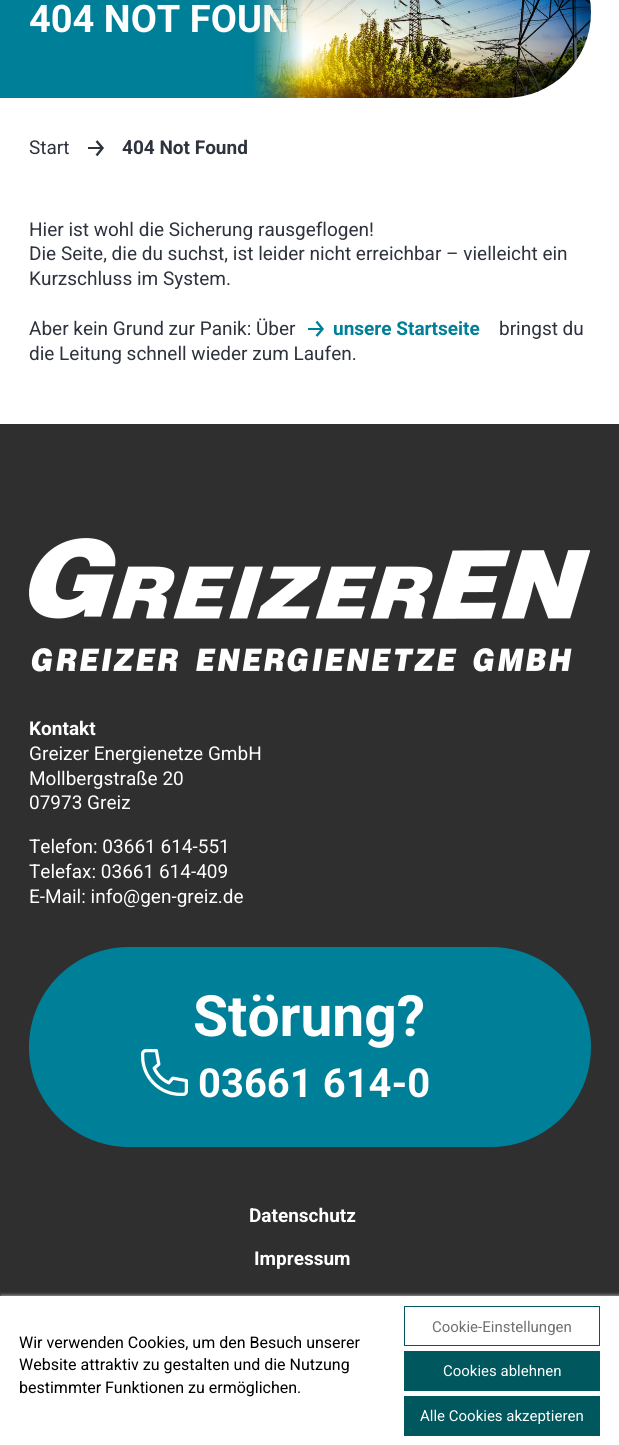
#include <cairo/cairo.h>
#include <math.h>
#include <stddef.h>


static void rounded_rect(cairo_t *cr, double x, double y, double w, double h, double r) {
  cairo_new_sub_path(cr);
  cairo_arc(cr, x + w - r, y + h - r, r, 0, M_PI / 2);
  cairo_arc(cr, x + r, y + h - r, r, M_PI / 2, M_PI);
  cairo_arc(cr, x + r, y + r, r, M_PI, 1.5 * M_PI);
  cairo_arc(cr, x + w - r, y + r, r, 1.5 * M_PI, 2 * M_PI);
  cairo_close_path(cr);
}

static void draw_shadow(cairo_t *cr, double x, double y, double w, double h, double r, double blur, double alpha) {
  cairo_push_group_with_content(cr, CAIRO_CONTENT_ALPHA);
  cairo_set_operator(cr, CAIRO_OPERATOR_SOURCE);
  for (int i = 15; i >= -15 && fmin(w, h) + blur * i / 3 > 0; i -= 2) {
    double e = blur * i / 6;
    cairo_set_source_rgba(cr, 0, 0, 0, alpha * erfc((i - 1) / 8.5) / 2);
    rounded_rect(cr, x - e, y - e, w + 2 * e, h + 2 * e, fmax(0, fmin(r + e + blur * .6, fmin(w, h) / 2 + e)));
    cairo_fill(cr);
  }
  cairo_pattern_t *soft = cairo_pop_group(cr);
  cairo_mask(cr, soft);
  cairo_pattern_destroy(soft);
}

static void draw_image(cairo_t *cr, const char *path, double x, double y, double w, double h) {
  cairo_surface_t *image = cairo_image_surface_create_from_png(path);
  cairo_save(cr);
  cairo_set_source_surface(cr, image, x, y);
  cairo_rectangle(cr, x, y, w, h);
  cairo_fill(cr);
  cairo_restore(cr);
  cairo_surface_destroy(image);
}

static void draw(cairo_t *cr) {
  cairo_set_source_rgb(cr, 1, 1, 1);
  cairo_paint(cr);
  cairo_set_source_rgb(cr, 0, 127 / 255.0, 152 / 255.0);
  cairo_rectangle(cr, 0, 0, 303, 98);
  cairo_fill(cr);
  cairo_new_path(cr);
  cairo_move_to(cr, 96.5, 155.5);
  cairo_line_to(cr, 102.5, 148);
  cairo_line_to(cr, 96.5, 141);
  cairo_set_source_rgb(cr, 46 / 255.0, 51 / 255.0, 61 / 255.0);
  cairo_set_line_width(cr, 2.4);
  cairo_stroke(cr);
  cairo_rectangle(cr, 88, 147, 14, 2);
  cairo_fill(cr);
  cairo_new_path(cr);
  cairo_move_to(cr, 316.5, 336);
  cairo_line_to(cr, 322.5, 329);
  cairo_line_to(cr, 316.5, 321.5);
  cairo_set_source_rgb(cr, 0, 127 / 255.0, 152 / 255.0);
  cairo_stroke(cr);
  cairo_rectangle(cr, 308, 328, 14, 2);
  cairo_fill(cr);
  cairo_set_source_rgb(cr, 47 / 255.0, 47 / 255.0, 47 / 255.0);
  cairo_rectangle(cr, 0, 424, 619, 872);
  cairo_fill(cr);
  draw_image(cr, "images/2.png", 29, 538, 561, 134);
  cairo_set_source_rgb(cr, 0, 127 / 255.0, 153 / 255.0);
  rounded_rect(cr, 29, 947, 562, 200, 100);
  cairo_fill(cr);
  draw_image(cr, "images/3.png", 141, 1049, 47, 47);
  cairo_set_source_rgb(cr, 154 / 255.0, 154 / 255.0, 154 / 255.0);
  draw_shadow(cr, 1, 1295, 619, 149, 0, 1.5, 1);
  cairo_set_source_rgb(cr, 1, 1, 1);
  cairo_rectangle(cr, 0, 1296, 619, 149);
  cairo_fill(cr);
  cairo_rectangle(cr, 404.5, 1306.5, 195, 39);
  cairo_set_source_rgb(cr, 0, 87 / 255.0, 93 / 255.0);
  cairo_set_line_width(cr, 1);
  cairo_stroke(cr);
  cairo_rectangle(cr, 404, 1351, 196, 40);
  cairo_fill(cr);
  cairo_rectangle(cr, 404, 1396, 196, 40);
  cairo_fill(cr);
  cairo_select_font_face(cr, "Roboto", CAIRO_FONT_SLANT_NORMAL, CAIRO_FONT_WEIGHT_BOLD);
  cairo_set_font_size(cr, 38);
  cairo_set_source_rgb(cr, 1, 1, 1);
  cairo_move_to(cr, 29, 32);
  cairo_show_text(cr, "404 NOT FOUN");
  draw_image(cr, "images/1.png", 254, 0, 337, 98);
  cairo_select_font_face(cr, "Roboto", CAIRO_FONT_SLANT_NORMAL, CAIRO_FONT_WEIGHT_NORMAL);
  cairo_set_font_size(cr, 19);
  cairo_set_source_rgb(cr, 46 / 255.0, 51 / 255.0, 61 / 255.0);
  cairo_move_to(cr, 29, 154);
  cairo_show_text(cr, "Start");
  cairo_select_font_face(cr, "Roboto", CAIRO_FONT_SLANT_NORMAL, CAIRO_FONT_WEIGHT_BOLD);
  cairo_move_to(cr, 122, 154);
  cairo_show_text(cr, "404 Not Found");
  cairo_select_font_face(cr, "Roboto", CAIRO_FONT_SLANT_NORMAL, CAIRO_FONT_WEIGHT_NORMAL);
  cairo_move_to(cr, 29, 236);
  cairo_show_text(cr, "Hier ist wohl die Sicherung rausgeflogen!");
  cairo_move_to(cr, 29, 260);
  cairo_show_text(cr, "Die Seite, die du suchst, ist leider nicht erreichbar – vielleicht ein");
  cairo_move_to(cr, 29, 285);
  cairo_show_text(cr, "Kurzschluss im System.");
  cairo_move_to(cr, 29, 335);
  cairo_show_text(cr, "Aber kein Grund zur Panik: Über");
  cairo_select_font_face(cr, "Roboto", CAIRO_FONT_SLANT_NORMAL, CAIRO_FONT_WEIGHT_BOLD);
  cairo_set_source_rgb(cr, 0, 127 / 255.0, 152 / 255.0);
  cairo_move_to(cr, 333, 335);
  cairo_show_text(cr, "unsere Startseite");
  cairo_select_font_face(cr, "Roboto", CAIRO_FONT_SLANT_NORMAL, CAIRO_FONT_WEIGHT_NORMAL);
  cairo_set_source_rgb(cr, 46 / 255.0, 51 / 255.0, 61 / 255.0);
  cairo_move_to(cr, 499, 335);
  cairo_show_text(cr, "bringst du");
  cairo_move_to(cr, 29, 360);
  cairo_show_text(cr, "die Leitung schnell wieder zum Laufen.");
  cairo_select_font_face(cr, "Roboto", CAIRO_FONT_SLANT_NORMAL, CAIRO_FONT_WEIGHT_BOLD);
  cairo_set_source_rgb(cr, 1, 1, 1);
  cairo_move_to(cr, 29, 735);
  cairo_show_text(cr, "Kontakt");
  cairo_select_font_face(cr, "Roboto", CAIRO_FONT_SLANT_NORMAL, CAIRO_FONT_WEIGHT_NORMAL);
  cairo_move_to(cr, 29, 760);
  cairo_show_text(cr, "Greizer Energienetze GmbH");
  cairo_move_to(cr, 29, 785);
  cairo_show_text(cr, "Mollbergstraße 20");
  cairo_move_to(cr, 29, 809);
  cairo_show_text(cr, "07973 Greiz");
  cairo_move_to(cr, 29, 853);
  cairo_show_text(cr, "Telefon: 03661 614-551");
  cairo_move_to(cr, 29, 878);
  cairo_show_text(cr, "Telefax: 03661 614-409");
  cairo_move_to(cr, 29, 903);
  cairo_show_text(cr, "E-Mail: info@gen-greiz.de");
  cairo_select_font_face(cr, "Roboto", CAIRO_FONT_SLANT_NORMAL, CAIRO_FONT_WEIGHT_BOLD);
  cairo_set_font_size(cr, 57);
  cairo_move_to(cr, 193, 1036);
  cairo_show_text(cr, "Störung?");
  cairo_set_font_size(cr, 40);
  cairo_move_to(cr, 198, 1097);
  cairo_show_text(cr, "03661 614-0");
  cairo_set_font_size(cr, 19);
  cairo_move_to(cr, 249, 1222);
  cairo_show_text(cr, "Datenschutz");
  cairo_move_to(cr, 254, 1265);
  cairo_show_text(cr, "Impressum");
  cairo_select_font_face(cr, "Roboto", CAIRO_FONT_SLANT_NORMAL, CAIRO_FONT_WEIGHT_NORMAL);
  cairo_set_font_size(cr, 16);
  cairo_set_source_rgb(cr, 0, 0, 0);
  cairo_move_to(cr, 19, 1348);
  cairo_show_text(cr, "Wir verwenden Cookies, um den Besuch unserer");
  cairo_move_to(cr, 19, 1370);
  cairo_show_text(cr, "Website attraktiv zu gestalten und die Nutzung");
  cairo_move_to(cr, 19, 1393);
  cairo_show_text(cr, "bestimmter Funktionen zu ermöglichen.");
  cairo_set_font_size(cr, 15);
  cairo_set_source_rgb(cr, 112 / 255.0, 112 / 255.0, 112 / 255.0);
  cairo_move_to(cr, 432, 1332);
  cairo_show_text(cr, "Cookie-Einstellungen");
  cairo_set_source_rgb(cr, 1, 1, 1);
  cairo_move_to(cr, 443, 1376);
  cairo_show_text(cr, "Cookies ablehnen");
  cairo_move_to(cr, 420, 1421);
  cairo_show_text(cr, "Alle Cookies akzeptieren");
}

int main(void) {
  cairo_surface_t *surface = cairo_image_surface_create(CAIRO_FORMAT_RGB24, 619, 1445);
  cairo_t *cr = cairo_create(surface);
  cairo_font_options_t *options = cairo_font_options_create();
  cairo_font_options_set_hint_metrics(options, CAIRO_HINT_METRICS_OFF);
  cairo_font_options_set_hint_style(options, CAIRO_HINT_STYLE_NONE);
  cairo_set_font_options(cr, options);
  cairo_set_miter_limit(cr, 4);
  draw(cr);
  cairo_surface_write_to_png(surface, "out.png");
  cairo_font_options_destroy(options);
  cairo_destroy(cr);
  cairo_surface_destroy(surface);
  return 0;
}
